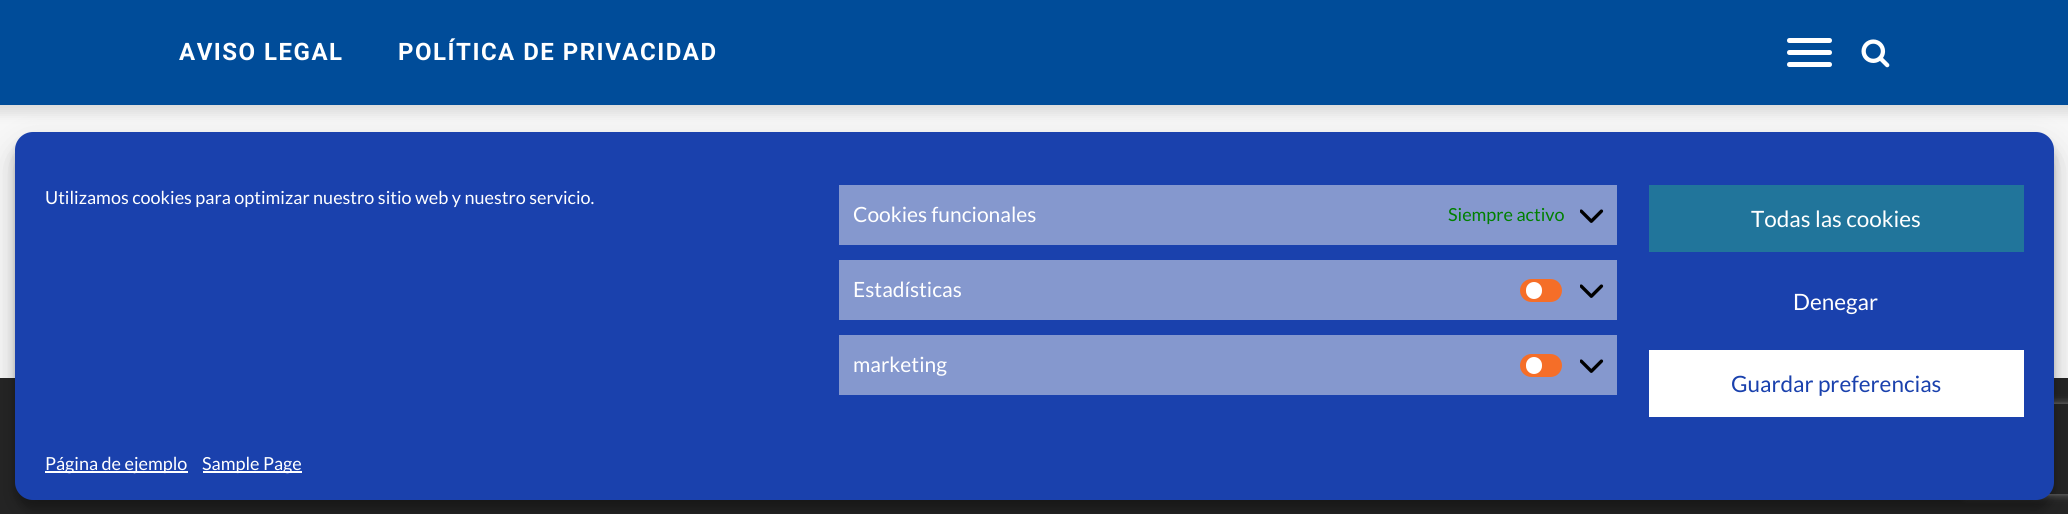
#include <cairo/cairo.h>
#include <math.h>
#include <stddef.h>


static void draw_spaced(cairo_t *cr, double x, double y, const char *s, double letter, double word) {
  cairo_move_to(cr, x, y);
  while (*s) {
    char ch[5] = {0};
    int n = 0;
    do ch[n++] = *s++; while ((*s & 0xC0) == 0x80);
    cairo_show_text(cr, ch);
    cairo_rel_move_to(cr, letter + word * (*ch == ' '), 0);
  }
}

static void rounded_rect(cairo_t *cr, double x, double y, double w, double h, double r) {
  cairo_new_sub_path(cr);
  cairo_arc(cr, x + w - r, y + h - r, r, 0, M_PI / 2);
  cairo_arc(cr, x + r, y + h - r, r, M_PI / 2, M_PI);
  cairo_arc(cr, x + r, y + r, r, M_PI, 1.5 * M_PI);
  cairo_arc(cr, x + w - r, y + r, r, 1.5 * M_PI, 2 * M_PI);
  cairo_close_path(cr);
}

static void draw_shadow(cairo_t *cr, double x, double y, double w, double h, double r, double blur, double alpha) {
  cairo_push_group_with_content(cr, CAIRO_CONTENT_ALPHA);
  cairo_set_operator(cr, CAIRO_OPERATOR_SOURCE);
  for (int i = 15; i >= -15 && fmin(w, h) + blur * i / 3 > 0; i -= 2) {
    double e = blur * i / 6;
    cairo_set_source_rgba(cr, 0, 0, 0, alpha * erfc((i - 1) / 8.5) / 2);
    rounded_rect(cr, x - e, y - e, w + 2 * e, h + 2 * e, fmax(0, fmin(r + e + blur * .6, fmin(w, h) / 2 + e)));
    cairo_fill(cr);
  }
  cairo_pattern_t *soft = cairo_pop_group(cr);
  cairo_mask(cr, soft);
  cairo_pattern_destroy(soft);
}

static void draw_image(cairo_t *cr, const char *path, double x, double y, double w, double h) {
  cairo_surface_t *image = cairo_image_surface_create_from_png(path);
  cairo_save(cr);
  cairo_set_source_surface(cr, image, x, y);
  cairo_rectangle(cr, x, y, w, h);
  cairo_fill(cr);
  cairo_restore(cr);
  cairo_surface_destroy(image);
}

static void draw(cairo_t *cr) {
  cairo_set_source_rgb(cr, 247 / 255.0, 247 / 255.0, 247 / 255.0);
  cairo_paint(cr);
  cairo_set_source_rgb(cr, 0, 0, 0);
  draw_shadow(cr, -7, -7, 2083, 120, 0, 6, 0.12);
  cairo_set_source_rgb(cr, 0, 76 / 255.0, 153 / 255.0);
  cairo_rectangle(cr, 0, 0, 2068, 105);
  cairo_fill(cr);
  cairo_set_source_rgb(cr, 1, 1, 1);
  cairo_new_path(cr);
  cairo_move_to(cr, 1789.5, 38);
  cairo_line_to(cr, 1809, 38);
  cairo_line_to(cr, 1809, 43);
  cairo_line_to(cr, 1789.5, 43);
  cairo_curve_to(cr, 1788, 43, 1787, 42, 1787, 40.5);
  cairo_curve_to(cr, 1787, 39, 1788, 38, 1789.5, 38);
  cairo_close_path(cr);
  cairo_fill(cr);
  cairo_new_path(cr);
  cairo_move_to(cr, 1809, 38);
  cairo_line_to(cr, 1829.5, 38);
  cairo_curve_to(cr, 1831, 38, 1832, 39, 1832, 40.5);
  cairo_curve_to(cr, 1832, 42, 1831, 43, 1829.5, 43);
  cairo_line_to(cr, 1809, 43);
  cairo_close_path(cr);
  cairo_fill(cr);
  cairo_new_path(cr);
  cairo_move_to(cr, 1789.5, 50);
  cairo_line_to(cr, 1809, 50);
  cairo_line_to(cr, 1809, 55);
  cairo_line_to(cr, 1789.5, 55);
  cairo_curve_to(cr, 1788, 55, 1787, 54, 1787, 52.5);
  cairo_curve_to(cr, 1787, 51, 1788, 50, 1789.5, 50);
  cairo_close_path(cr);
  cairo_fill(cr);
  cairo_new_path(cr);
  cairo_move_to(cr, 1809, 50);
  cairo_line_to(cr, 1829.5, 50);
  cairo_curve_to(cr, 1831, 50, 1832, 51, 1832, 52.5);
  cairo_curve_to(cr, 1832, 54, 1831, 55, 1829.5, 55);
  cairo_line_to(cr, 1809, 55);
  cairo_close_path(cr);
  cairo_fill(cr);
  cairo_new_path(cr);
  cairo_move_to(cr, 1789.5, 62);
  cairo_line_to(cr, 1809, 62);
  cairo_line_to(cr, 1809, 67);
  cairo_line_to(cr, 1789.5, 67);
  cairo_curve_to(cr, 1788, 67, 1787, 66, 1787, 64.5);
  cairo_curve_to(cr, 1787, 63, 1788, 62, 1789.5, 62);
  cairo_close_path(cr);
  cairo_fill(cr);
  cairo_new_path(cr);
  cairo_move_to(cr, 1809, 62);
  cairo_line_to(cr, 1829.5, 62);
  cairo_curve_to(cr, 1831, 62, 1832, 63, 1832, 64.5);
  cairo_curve_to(cr, 1832, 66, 1831, 67, 1829.5, 67);
  cairo_line_to(cr, 1809, 67);
  cairo_close_path(cr);
  cairo_fill(cr);
  draw_image(cr, "images/1.png", 1861, 39, 29, 29);
  cairo_set_source_rgb(cr, 37 / 255.0, 37 / 255.0, 37 / 255.0);
  cairo_rectangle(cr, 0, 378, 2068, 136);
  cairo_fill(cr);
  cairo_set_source_rgb(cr, 0, 0, 0);
  draw_shadow(cr, 15, 141, 2039, 368, 18, 4.5, 0.23);
  draw_shadow(cr, 15, 147, 2039, 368, 18, 15, 0.19);
  cairo_save(cr);
  cairo_set_fill_rule(cr, CAIRO_FILL_RULE_EVEN_ODD);
  cairo_new_path(cr);
  cairo_move_to(cr, 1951, 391);
  cairo_line_to(cr, 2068, 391);
  cairo_line_to(cr, 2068, 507);
  cairo_line_to(cr, 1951, 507);
  cairo_close_path(cr);
  cairo_move_to(cr, 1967, 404);
  cairo_line_to(cr, 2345, 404);
  cairo_curve_to(cr, 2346.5, 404, 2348, 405.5, 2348, 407);
  cairo_line_to(cr, 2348, 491);
  cairo_curve_to(cr, 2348, 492.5, 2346.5, 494, 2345, 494);
  cairo_line_to(cr, 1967, 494);
  cairo_curve_to(cr, 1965.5, 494, 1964, 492.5, 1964, 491);
  cairo_line_to(cr, 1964, 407);
  cairo_curve_to(cr, 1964, 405.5, 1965.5, 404, 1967, 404);
  cairo_close_path(cr);
  cairo_clip(cr);
  cairo_set_source_rgb(cr, 128 / 255.0, 128 / 255.0, 128 / 255.0);
  draw_shadow(cr, 1964, 404, 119, 90, 3, 4, 1);
  cairo_restore(cr);
  cairo_set_source_rgb(cr, 26 / 255.0, 65 / 255.0, 173 / 255.0);
  rounded_rect(cr, 15, 132, 2039, 368, 18);
  cairo_fill(cr);
  cairo_set_source_rgb(cr, 133 / 255.0, 152 / 255.0, 206 / 255.0);
  cairo_rectangle(cr, 839, 185, 778, 60);
  cairo_fill(cr);
  draw_image(cr, "images/2.png", 1580, 209, 24, 14);
  cairo_rectangle(cr, 839, 260, 778, 60);
  cairo_fill(cr);
  cairo_set_source_rgb(cr, 245 / 255.0, 110 / 255.0, 40 / 255.0);
  rounded_rect(cr, 1520, 279, 42, 23, 11.5);
  cairo_fill(cr);
  cairo_set_source_rgb(cr, 1, 1, 1);
  rounded_rect(cr, 1526, 282, 16, 17, 8);
  cairo_fill(cr);
  draw_image(cr, "images/2.png", 1580, 284, 24, 14);
  cairo_set_source_rgb(cr, 133 / 255.0, 152 / 255.0, 206 / 255.0);
  cairo_rectangle(cr, 839, 335, 778, 60);
  cairo_fill(cr);
  cairo_set_source_rgb(cr, 245 / 255.0, 110 / 255.0, 40 / 255.0);
  rounded_rect(cr, 1520, 354, 42, 23, 11.5);
  cairo_fill(cr);
  cairo_set_source_rgb(cr, 1, 1, 1);
  rounded_rect(cr, 1526, 357, 16, 17, 8);
  cairo_fill(cr);
  draw_image(cr, "images/2.png", 1580, 359, 24, 14);
  cairo_set_source_rgb(cr, 33 / 255.0, 117 / 255.0, 155 / 255.0);
  cairo_rectangle(cr, 1649, 185, 375, 67);
  cairo_fill(cr);
  cairo_set_source_rgb(cr, 1, 1, 1);
  cairo_rectangle(cr, 1649, 350, 375, 67);
  cairo_fill(cr);
  cairo_rectangle(cr, 45, 471, 143, 2);
  cairo_fill(cr);
  cairo_rectangle(cr, 203, 471, 99, 2);
  cairo_fill(cr);
  cairo_select_font_face(cr, "Roboto", CAIRO_FONT_SLANT_NORMAL, CAIRO_FONT_WEIGHT_BOLD);
  cairo_set_font_size(cr, 24);
  draw_spaced(cr, 179, 60, "AVISO LEGAL", 1.5, 0);
  draw_spaced(cr, 398, 60, "POLÍTICA DE PRIVACIDAD", 1.5, 0);
  cairo_select_font_face(cr, "Lato", CAIRO_FONT_SLANT_NORMAL, CAIRO_FONT_WEIGHT_NORMAL);
  cairo_set_font_size(cr, 18);
  cairo_move_to(cr, 45, 204);
  cairo_show_text(cr, "Utilizamos cookies para optimizar nuestro sitio web y nuestro servicio.");
  cairo_set_font_size(cr, 21);
  cairo_move_to(cr, 853, 222);
  cairo_show_text(cr, "Cookies funcionales");
  cairo_set_font_size(cr, 18);
  cairo_set_source_rgb(cr, 0, 128 / 255.0, 0);
  cairo_move_to(cr, 1448, 221);
  cairo_show_text(cr, "Siempre activo");
  cairo_set_font_size(cr, 21);
  cairo_set_source_rgb(cr, 1, 1, 1);
  cairo_move_to(cr, 853, 297);
  cairo_show_text(cr, "Estadísticas");
  cairo_move_to(cr, 853, 372);
  cairo_show_text(cr, "marketing");
  cairo_set_font_size(cr, 22.5);
  cairo_move_to(cr, 1751, 227);
  cairo_show_text(cr, "Todas las cookies");
  cairo_move_to(cr, 1793, 310);
  cairo_show_text(cr, "Denegar");
  cairo_set_source_rgb(cr, 26 / 255.0, 65 / 255.0, 173 / 255.0);
  cairo_move_to(cr, 1731, 392);
  cairo_show_text(cr, "Guardar preferencias");
  cairo_set_font_size(cr, 18);
  cairo_set_source_rgb(cr, 1, 1, 1);
  cairo_move_to(cr, 45, 470);
  cairo_show_text(cr, "Página de ejemplo");
  cairo_move_to(cr, 202, 470);
  cairo_show_text(cr, "Sample Page");
}

int main(void) {
  cairo_surface_t *surface = cairo_image_surface_create(CAIRO_FORMAT_RGB24, 2068, 514);
  cairo_t *cr = cairo_create(surface);
  cairo_font_options_t *options = cairo_font_options_create();
  cairo_font_options_set_hint_metrics(options, CAIRO_HINT_METRICS_OFF);
  cairo_font_options_set_hint_style(options, CAIRO_HINT_STYLE_NONE);
  cairo_set_font_options(cr, options);
  cairo_set_miter_limit(cr, 4);
  draw(cr);
  cairo_surface_write_to_png(surface, "out.png");
  cairo_font_options_destroy(options);
  cairo_destroy(cr);
  cairo_surface_destroy(surface);
  return 0;
}
